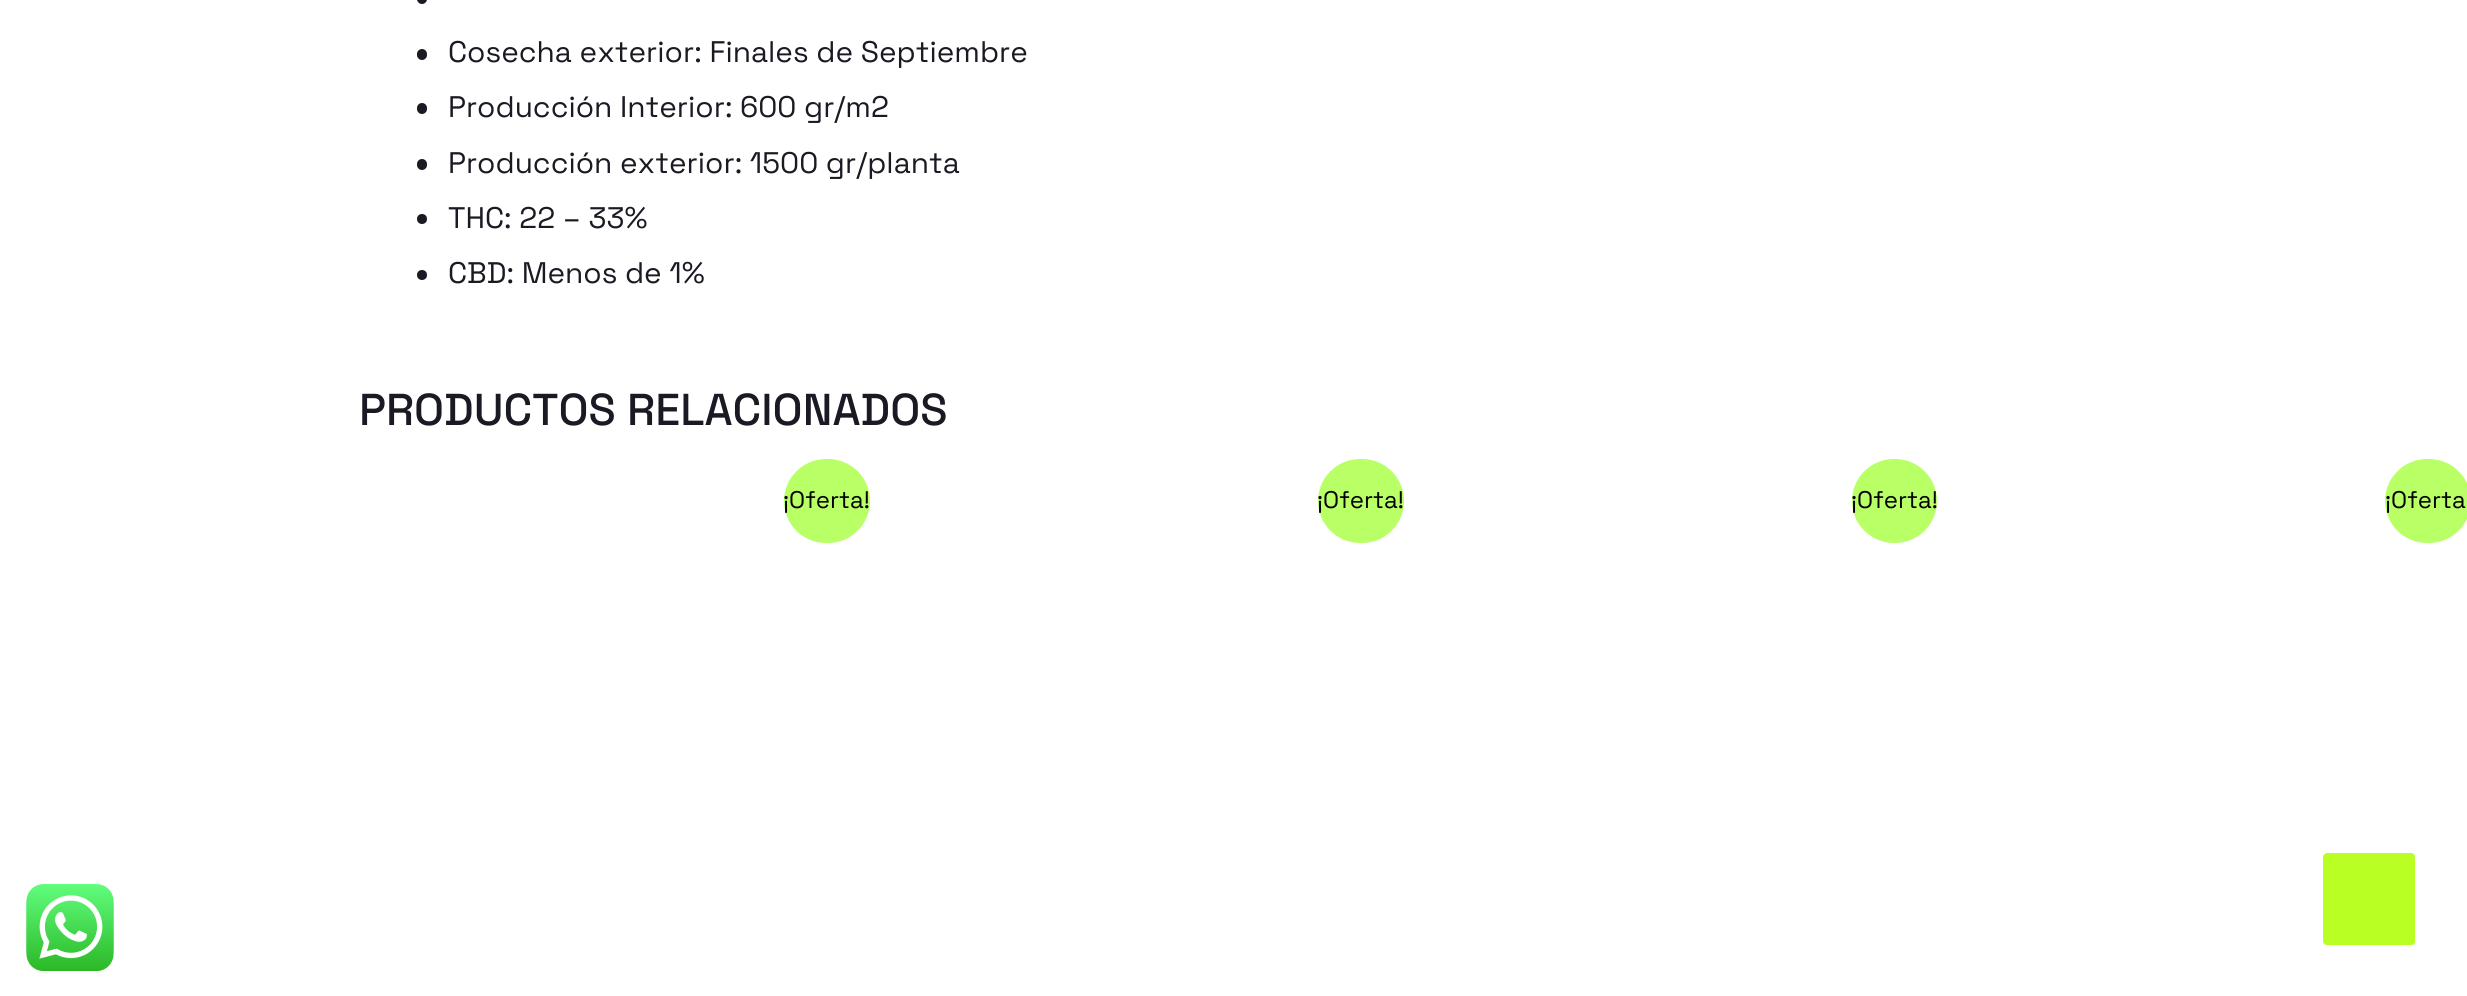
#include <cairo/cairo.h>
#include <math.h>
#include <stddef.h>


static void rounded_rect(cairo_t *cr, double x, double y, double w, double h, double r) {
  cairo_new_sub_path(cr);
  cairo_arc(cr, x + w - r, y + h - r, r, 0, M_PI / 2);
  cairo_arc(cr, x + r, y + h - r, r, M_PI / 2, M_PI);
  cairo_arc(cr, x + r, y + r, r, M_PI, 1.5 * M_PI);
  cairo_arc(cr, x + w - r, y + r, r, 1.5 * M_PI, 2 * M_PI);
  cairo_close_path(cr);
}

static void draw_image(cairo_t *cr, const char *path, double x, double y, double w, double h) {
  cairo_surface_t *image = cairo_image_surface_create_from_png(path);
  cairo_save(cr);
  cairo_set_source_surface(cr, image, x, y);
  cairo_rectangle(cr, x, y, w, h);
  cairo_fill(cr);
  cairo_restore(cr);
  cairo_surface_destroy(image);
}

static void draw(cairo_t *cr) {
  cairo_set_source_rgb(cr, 1, 1, 1);
  cairo_paint(cr);
  cairo_set_source_rgb(cr, 25 / 255.0, 26 / 255.0, 35 / 255.0);
  rounded_rect(cr, 417, -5, 10, 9, 5);
  cairo_fill(cr);
  rounded_rect(cr, 417, 49, 10, 11, 5);
  cairo_fill(cr);
  rounded_rect(cr, 417, 103, 10, 11, 5);
  cairo_fill(cr);
  rounded_rect(cr, 417, 159, 10, 11, 5);
  cairo_fill(cr);
  cairo_arc(cr, 422, 219, 5, 0, 2 * M_PI);
  cairo_fill(cr);
  cairo_arc(cr, 422, 275, 5, 0, 2 * M_PI);
  cairo_fill(cr);
  cairo_set_source_rgb(cr, 185 / 255.0, 1, 102 / 255.0);
  rounded_rect(cr, 784, 459, 86, 84, 42);
  cairo_fill(cr);
  rounded_rect(cr, 1318, 459, 86, 84, 42);
  cairo_fill(cr);
  rounded_rect(cr, 1852, 459, 85, 84, 42);
  cairo_fill(cr);
  rounded_rect(cr, 2385, 459, 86, 84, 42);
  cairo_fill(cr);
  draw_image(cr, "images/1.png", 26, 884, 88, 87);
  cairo_set_source_rgb(cr, 185 / 255.0, 1, 35 / 255.0);
  cairo_new_path(cr);
  cairo_move_to(cr, 2412, 945);
  cairo_line_to(cr, 2327, 945);
  cairo_curve_to(cr, 2325, 945, 2323, 943, 2323, 942);
  cairo_line_to(cr, 2323, 857);
  cairo_curve_to(cr, 2323, 855, 2325, 853, 2327, 853);
  cairo_line_to(cr, 2412, 853);
  cairo_curve_to(cr, 2413, 853, 2415, 855, 2415, 857);
  cairo_line_to(cr, 2415, 942);
  cairo_curve_to(cr, 2415, 943, 2413, 945, 2412, 945);
  cairo_close_path(cr);
  cairo_fill(cr);
  cairo_select_font_face(cr, "Space Grotesk", CAIRO_FONT_SLANT_NORMAL, CAIRO_FONT_WEIGHT_NORMAL);
  cairo_set_font_size(cr, 29.75);
  cairo_set_source_rgb(cr, 25 / 255.0, 26 / 255.0, 35 / 255.0);
  cairo_move_to(cr, 448, 62);
  cairo_show_text(cr, "Cosecha exterior: Finales de Septiembre");
  cairo_move_to(cr, 448, 117);
  cairo_show_text(cr, "Producción Interior: 600 gr/m2");
  cairo_move_to(cr, 448, 173);
  cairo_show_text(cr, "Producción exterior: 1500 gr/planta");
  cairo_move_to(cr, 448, 228);
  cairo_show_text(cr, "THC: 22 – 33%");
  cairo_move_to(cr, 448, 283);
  cairo_show_text(cr, "CBD: Menos de 1%");
  cairo_select_font_face(cr, "Space Grotesk Medium", CAIRO_FONT_SLANT_NORMAL, CAIRO_FONT_WEIGHT_NORMAL);
  cairo_set_font_size(cr, 44.6);
  cairo_move_to(cr, 359, 425);
  cairo_show_text(cr, "PRODUCTOS RELACIONADOS");
  cairo_select_font_face(cr, "Space Grotesk", CAIRO_FONT_SLANT_NORMAL, CAIRO_FONT_WEIGHT_NORMAL);
  cairo_set_font_size(cr, 24);
  cairo_set_source_rgb(cr, 0, 0, 0);
  cairo_move_to(cr, 783, 508);
  cairo_show_text(cr, "¡Oferta!");
  cairo_move_to(cr, 1317, 508);
  cairo_show_text(cr, "¡Oferta!");
  cairo_move_to(cr, 1851, 508);
  cairo_show_text(cr, "¡Oferta!");
  cairo_move_to(cr, 2385, 508);
  cairo_show_text(cr, "¡Oferta");
}

int main(void) {
  cairo_surface_t *surface = cairo_image_surface_create(CAIRO_FORMAT_RGB24, 2467, 996);
  cairo_t *cr = cairo_create(surface);
  cairo_font_options_t *options = cairo_font_options_create();
  cairo_font_options_set_hint_metrics(options, CAIRO_HINT_METRICS_OFF);
  cairo_font_options_set_hint_style(options, CAIRO_HINT_STYLE_NONE);
  cairo_set_font_options(cr, options);
  cairo_set_miter_limit(cr, 4);
  draw(cr);
  cairo_surface_write_to_png(surface, "out.png");
  cairo_font_options_destroy(options);
  cairo_destroy(cr);
  cairo_surface_destroy(surface);
  return 0;
}
